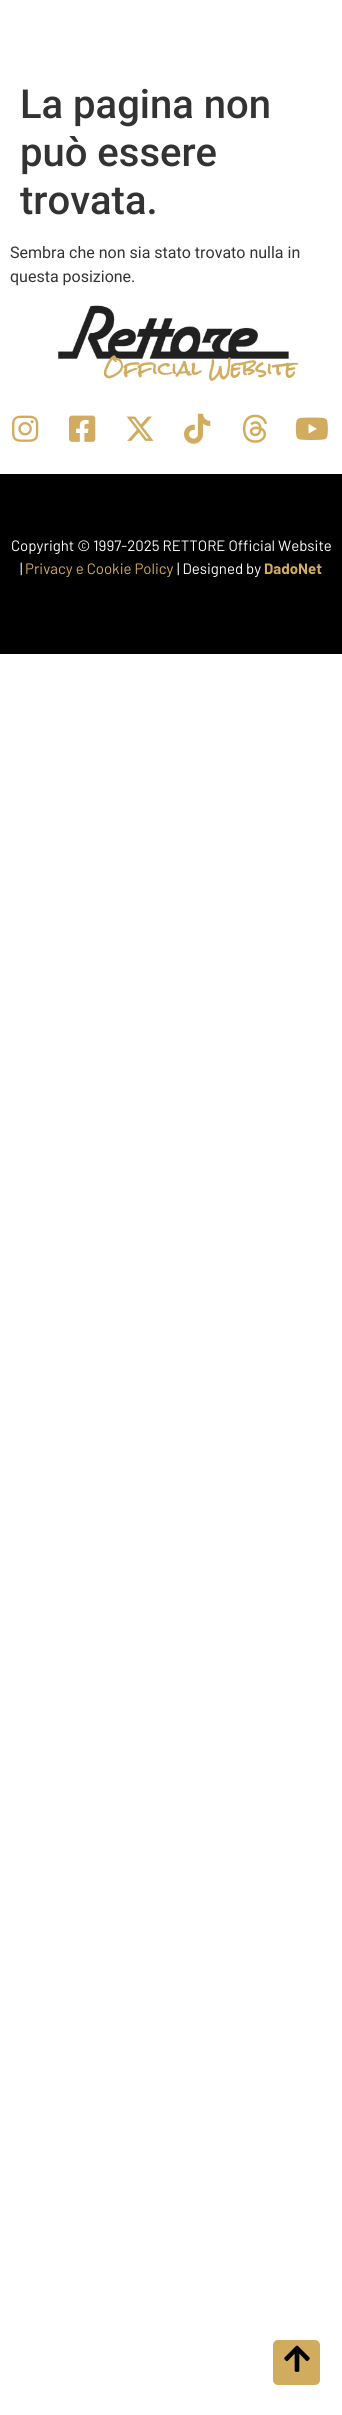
#include <cairo/cairo.h>
#include <math.h>
#include <stddef.h>


static void rounded_rect(cairo_t *cr, double x, double y, double w, double h, double r) {
  cairo_new_sub_path(cr);
  cairo_arc(cr, x + w - r, y + h - r, r, 0, M_PI / 2);
  cairo_arc(cr, x + r, y + h - r, r, M_PI / 2, M_PI);
  cairo_arc(cr, x + r, y + r, r, M_PI, 1.5 * M_PI);
  cairo_arc(cr, x + w - r, y + r, r, 1.5 * M_PI, 2 * M_PI);
  cairo_close_path(cr);
}

static void draw_image(cairo_t *cr, const char *path, double x, double y, double w, double h) {
  cairo_surface_t *image = cairo_image_surface_create_from_png(path);
  cairo_save(cr);
  cairo_set_source_surface(cr, image, x, y);
  cairo_rectangle(cr, x, y, w, h);
  cairo_fill(cr);
  cairo_restore(cr);
  cairo_surface_destroy(image);
}

static void draw(cairo_t *cr) {
  cairo_set_source_rgb(cr, 1, 1, 1);
  cairo_paint(cr);
  draw_image(cr, "images/1.png", 58, 305, 231, 54);
  draw_image(cr, "images/2.png", 12, 415, 27, 27);
  draw_image(cr, "images/3.png", 69, 415, 27, 27);
  draw_image(cr, "images/4.png", 126, 416, 28, 25);
  draw_image(cr, "images/5.png", 184, 413, 27, 31);
  draw_image(cr, "images/6.png", 242, 414, 26, 29);
  draw_image(cr, "images/7.png", 295, 417, 33, 23);
  cairo_set_source_rgb(cr, 0, 0, 0);
  cairo_rectangle(cr, 0, 474, 342, 180);
  cairo_fill(cr);
  cairo_set_source_rgb(cr, 210 / 255.0, 172 / 255.0, 94 / 255.0);
  rounded_rect(cr, 273, 2340, 47, 45, 5);
  cairo_fill(cr);
  draw_image(cr, "images/8.png", 284, 2345, 26, 27);
  cairo_select_font_face(cr, "Roboto Medium", CAIRO_FONT_SLANT_NORMAL, CAIRO_FONT_WEIGHT_NORMAL);
  cairo_set_font_size(cr, 40);
  cairo_set_source_rgb(cr, 51 / 255.0, 51 / 255.0, 51 / 255.0);
  cairo_move_to(cr, 20, 118);
  cairo_show_text(cr, "La pagina non");
  cairo_move_to(cr, 20, 166);
  cairo_show_text(cr, "può essere");
  cairo_move_to(cr, 20, 214);
  cairo_show_text(cr, "trovata.");
  cairo_select_font_face(cr, "Roboto", CAIRO_FONT_SLANT_NORMAL, CAIRO_FONT_WEIGHT_NORMAL);
  cairo_set_font_size(cr, 16);
  cairo_move_to(cr, 10, 258);
  cairo_show_text(cr, "Sembra che non sia stato trovato nulla in");
  cairo_move_to(cr, 10, 282);
  cairo_show_text(cr, "questa posizione.");
  cairo_select_font_face(cr, "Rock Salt", CAIRO_FONT_SLANT_NORMAL, CAIRO_FONT_WEIGHT_BOLD);
  cairo_set_font_size(cr, 19);
  cairo_set_source_rgb(cr, 210 / 255.0, 172 / 255.0, 94 / 255.0);
  cairo_move_to(cr, 103, 376);
  cairo_show_text(cr, "Official Website");
  cairo_select_font_face(cr, "Barlow", CAIRO_FONT_SLANT_NORMAL, CAIRO_FONT_WEIGHT_NORMAL);
  cairo_set_font_size(cr, 15);
  cairo_set_source_rgb(cr, 1, 1, 1);
  cairo_move_to(cr, 11, 551);
  cairo_show_text(cr, "Copyright © 1997-2025 RETTORE Official Website");
  cairo_move_to(cr, 20, 574);
  cairo_show_text(cr, "|");
  cairo_set_source_rgb(cr, 210 / 255.0, 172 / 255.0, 94 / 255.0);
  cairo_move_to(cr, 25, 574);
  cairo_show_text(cr, "Privacy e Cookie Policy");
  cairo_set_source_rgb(cr, 1, 1, 1);
  cairo_move_to(cr, 177, 574);
  cairo_show_text(cr, "| Designed by");
  cairo_select_font_face(cr, "Barlow", CAIRO_FONT_SLANT_NORMAL, CAIRO_FONT_WEIGHT_BOLD);
  cairo_set_source_rgb(cr, 210 / 255.0, 172 / 255.0, 94 / 255.0);
  cairo_move_to(cr, 264, 574);
  cairo_show_text(cr, "DadoNet");
}

int main(void) {
  cairo_surface_t *surface = cairo_image_surface_create(CAIRO_FORMAT_RGB24, 342, 2415);
  cairo_t *cr = cairo_create(surface);
  cairo_font_options_t *options = cairo_font_options_create();
  cairo_font_options_set_hint_metrics(options, CAIRO_HINT_METRICS_OFF);
  cairo_font_options_set_hint_style(options, CAIRO_HINT_STYLE_NONE);
  cairo_set_font_options(cr, options);
  cairo_set_miter_limit(cr, 4);
  draw(cr);
  cairo_surface_write_to_png(surface, "out.png");
  cairo_font_options_destroy(options);
  cairo_destroy(cr);
  cairo_surface_destroy(surface);
  return 0;
}
